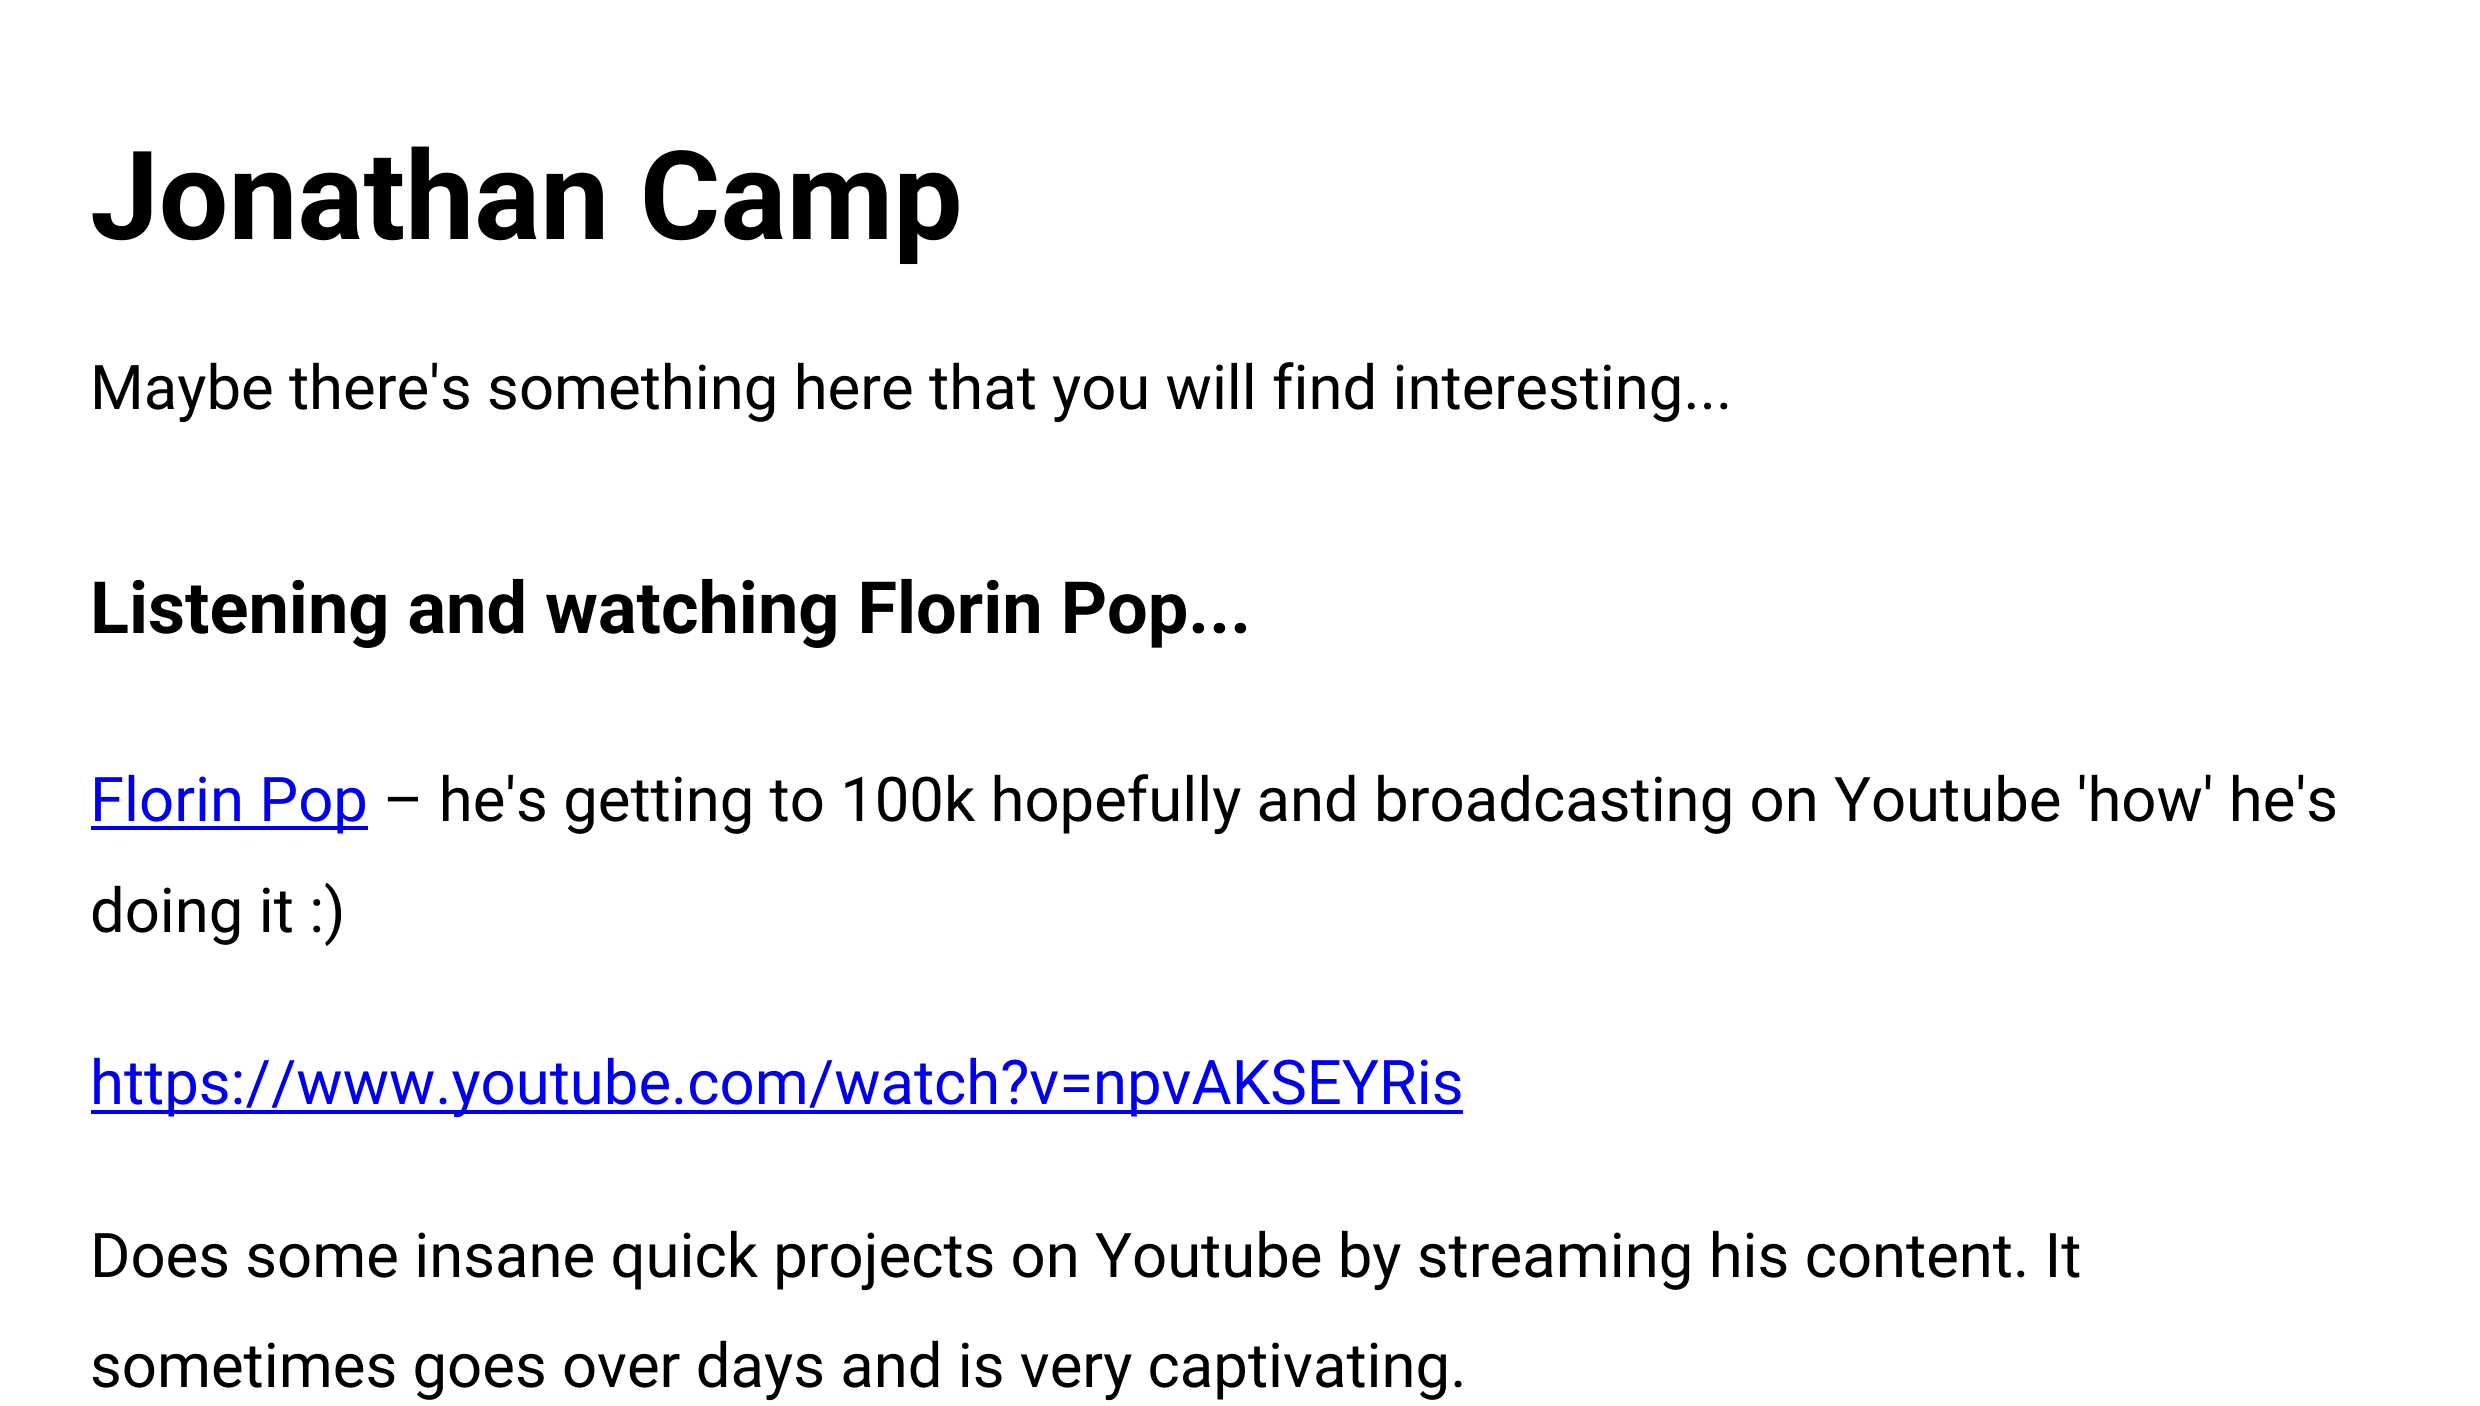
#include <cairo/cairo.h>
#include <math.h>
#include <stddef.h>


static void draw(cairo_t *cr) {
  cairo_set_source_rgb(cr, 1, 1, 1);
  cairo_paint(cr);
  cairo_set_source_rgb(cr, 0, 0, 238 / 255.0);
  cairo_rectangle(cr, 91, 826, 277, 4);
  cairo_fill(cr);
  cairo_rectangle(cr, 91, 1110, 1372, 4);
  cairo_fill(cr);
  cairo_select_font_face(cr, "Roboto", CAIRO_FONT_SLANT_NORMAL, CAIRO_FONT_WEIGHT_BOLD);
  cairo_set_font_size(cr, 123.25);
  cairo_set_source_rgb(cr, 0, 0, 0);
  cairo_move_to(cr, 90, 239);
  cairo_show_text(cr, "Jonathan Camp");
  cairo_select_font_face(cr, "Roboto", CAIRO_FONT_SLANT_NORMAL, CAIRO_FONT_WEIGHT_NORMAL);
  cairo_set_font_size(cr, 61.6);
  cairo_move_to(cr, 90, 409);
  cairo_show_text(cr, "Maybe there's something here that you will find interesting...");
  cairo_select_font_face(cr, "Roboto", CAIRO_FONT_SLANT_NORMAL, CAIRO_FONT_WEIGHT_BOLD);
  cairo_set_font_size(cr, 72.1);
  cairo_move_to(cr, 90, 633);
  cairo_show_text(cr, "Listening and watching Florin Pop...");
  cairo_select_font_face(cr, "Roboto", CAIRO_FONT_SLANT_NORMAL, CAIRO_FONT_WEIGHT_NORMAL);
  cairo_set_font_size(cr, 61.6);
  cairo_set_source_rgb(cr, 0, 0, 238 / 255.0);
  cairo_move_to(cr, 90, 821);
  cairo_show_text(cr, "Florin Pop");
  cairo_set_source_rgb(cr, 0, 0, 0);
  cairo_move_to(cr, 383, 821);
  cairo_show_text(cr, "– he's getting to 100k hopefully and broadcasting on Youtube 'how' he's");
  cairo_move_to(cr, 90, 932);
  cairo_show_text(cr, "doing it :)");
  cairo_set_source_rgb(cr, 0, 0, 238 / 255.0);
  cairo_move_to(cr, 90, 1104);
  cairo_show_text(cr, "https://www.youtube.com/watch?v=npvAKSEYRis");
  cairo_set_source_rgb(cr, 0, 0, 0);
  cairo_move_to(cr, 90, 1277);
  cairo_show_text(cr, "Does some insane quick projects on Youtube by streaming his content. It");
  cairo_move_to(cr, 90, 1387);
  cairo_show_text(cr, "sometimes goes over days and is very captivating.");
}

int main(void) {
  cairo_surface_t *surface = cairo_image_surface_create(CAIRO_FORMAT_RGB24, 2480, 1406);
  cairo_t *cr = cairo_create(surface);
  cairo_font_options_t *options = cairo_font_options_create();
  cairo_font_options_set_hint_metrics(options, CAIRO_HINT_METRICS_OFF);
  cairo_font_options_set_hint_style(options, CAIRO_HINT_STYLE_NONE);
  cairo_set_font_options(cr, options);
  cairo_set_miter_limit(cr, 4);
  draw(cr);
  cairo_surface_write_to_png(surface, "out.png");
  cairo_font_options_destroy(options);
  cairo_destroy(cr);
  cairo_surface_destroy(surface);
  return 0;
}
